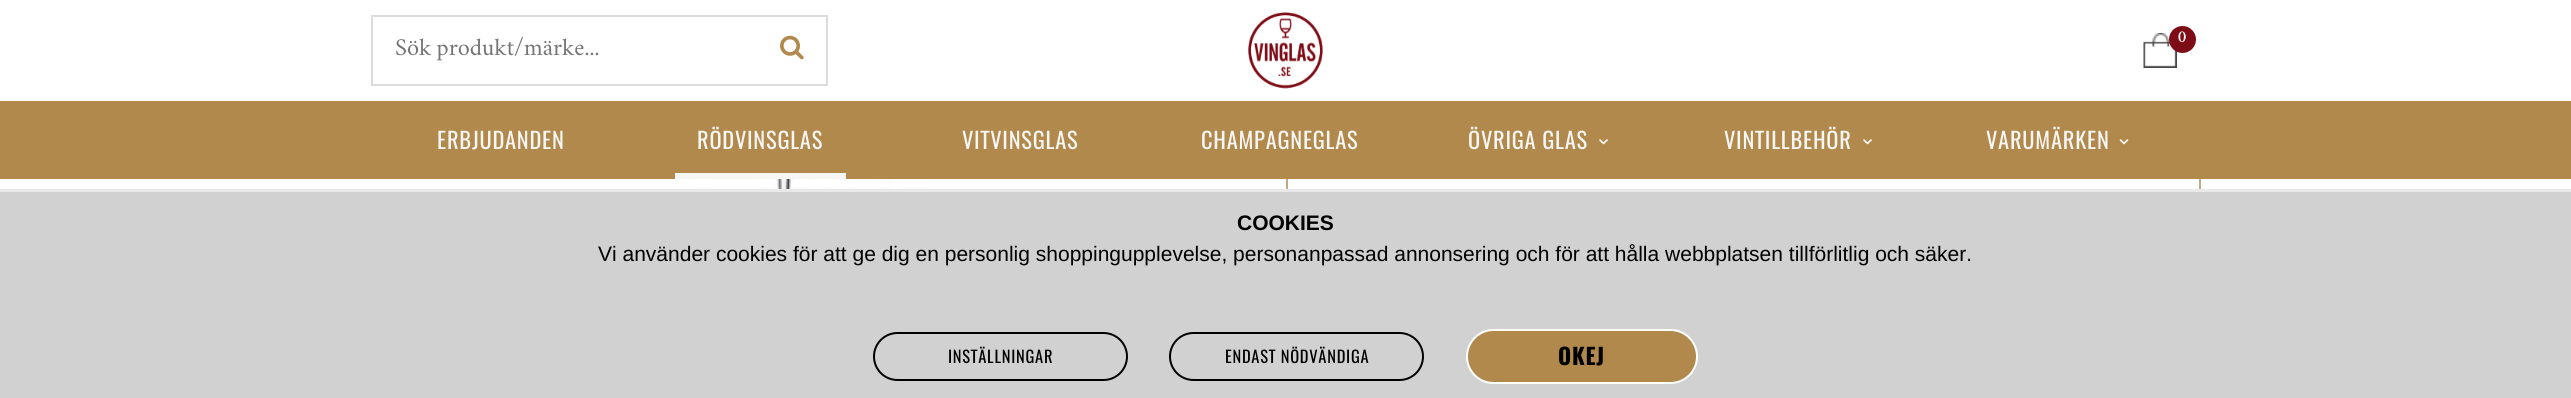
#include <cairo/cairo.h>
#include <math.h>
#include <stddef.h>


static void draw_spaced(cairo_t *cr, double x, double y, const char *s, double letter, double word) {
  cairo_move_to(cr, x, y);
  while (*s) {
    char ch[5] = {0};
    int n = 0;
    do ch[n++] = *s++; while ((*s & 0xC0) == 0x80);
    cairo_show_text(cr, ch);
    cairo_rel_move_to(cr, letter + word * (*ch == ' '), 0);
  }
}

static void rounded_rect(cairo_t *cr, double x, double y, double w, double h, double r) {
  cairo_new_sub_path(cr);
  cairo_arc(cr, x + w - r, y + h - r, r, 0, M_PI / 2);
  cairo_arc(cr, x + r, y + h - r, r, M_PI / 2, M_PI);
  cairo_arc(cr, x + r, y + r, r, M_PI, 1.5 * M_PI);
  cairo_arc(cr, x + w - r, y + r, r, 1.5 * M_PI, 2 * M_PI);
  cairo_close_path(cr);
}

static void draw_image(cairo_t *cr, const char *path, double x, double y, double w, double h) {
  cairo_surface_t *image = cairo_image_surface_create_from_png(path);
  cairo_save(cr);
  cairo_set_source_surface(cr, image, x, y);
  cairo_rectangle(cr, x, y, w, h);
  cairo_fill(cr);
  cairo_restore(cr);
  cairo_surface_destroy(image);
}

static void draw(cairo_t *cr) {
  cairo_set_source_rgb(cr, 1, 1, 1);
  cairo_paint(cr);
  cairo_rectangle(cr, 372, 16, 455, 69);
  cairo_set_source_rgb(cr, 220 / 255.0, 220 / 255.0, 220 / 255.0);
  cairo_stroke(cr);
  draw_image(cr, "images/1.png", 780, 35, 24, 25);
  draw_image(cr, "images/2.png", 1248, 12, 75, 77);
  draw_image(cr, "images/3.png", 2143, 33, 34, 35);
  cairo_set_source_rgb(cr, 126 / 255.0, 12 / 255.0, 22 / 255.0);
  cairo_arc(cr, 2182.5, 39.5, 13.5, 0, 2 * M_PI);
  cairo_fill(cr);
  cairo_rectangle(cr, 1287, 121, 913, 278);
  cairo_set_source_rgb(cr, 198 / 255.0, 168 / 255.0, 124 / 255.0);
  cairo_stroke(cr);
  cairo_set_source_rgb(cr, 177 / 255.0, 137 / 255.0, 76 / 255.0);
  cairo_rectangle(cr, 0, 101, 2571, 78);
  cairo_fill(cr);
  cairo_set_source_rgb(cr, 246 / 255.0, 246 / 255.0, 244 / 255.0);
  cairo_rectangle(cr, 675, 173, 171, 6);
  cairo_fill(cr);
  draw_image(cr, "images/4.png", 1599, 139, 9, 6);
  draw_image(cr, "images/4.png", 1863, 139, 9, 6);
  draw_image(cr, "images/5.png", 2119, 139, 10, 6);
  draw_image(cr, "images/6.png", 638, 179, 301, 10);
  cairo_set_source_rgb(cr, 209 / 255.0, 209 / 255.0, 209 / 255.0);
  cairo_rectangle(cr, 0, 192, 2571, 206);
  cairo_fill(cr);
  cairo_set_source_rgb(cr, 233 / 255.0, 233 / 255.0, 233 / 255.0);
  cairo_rectangle(cr, 0, 189, 2571, 3);
  cairo_fill(cr);
  rounded_rect(cr, 874, 333, 253, 47, 23.5);
  cairo_set_source_rgb(cr, 0, 0, 0);
  cairo_stroke(cr);
  rounded_rect(cr, 1170, 333, 253, 47, 23.5);
  cairo_stroke(cr);
  cairo_set_source_rgb(cr, 177 / 255.0, 137 / 255.0, 76 / 255.0);
  rounded_rect(cr, 1467, 330, 230, 53, 26.5);
  cairo_fill_preserve(cr);
  cairo_set_source_rgb(cr, 1, 1, 1);
  cairo_stroke(cr);
  cairo_select_font_face(cr, "Crimson Text", CAIRO_FONT_SLANT_NORMAL, CAIRO_FONT_WEIGHT_NORMAL);
  cairo_set_font_size(cr, 21);
  cairo_set_source_rgb(cr, 117 / 255.0, 117 / 255.0, 117 / 255.0);
  cairo_move_to(cr, 395, 55);
  cairo_show_text(cr, "Sök produkt/märke...");
  cairo_select_font_face(cr, "Crimson Text SemiBold", CAIRO_FONT_SLANT_NORMAL, CAIRO_FONT_WEIGHT_NORMAL);
  cairo_set_font_size(cr, 15);
  cairo_set_source_rgb(cr, 1, 1, 1);
  cairo_move_to(cr, 2178, 42);
  cairo_show_text(cr, "0");
  cairo_select_font_face(cr, "Oswald", CAIRO_FONT_SLANT_NORMAL, CAIRO_FONT_WEIGHT_NORMAL);
  cairo_set_font_size(cr, 22.5);
  cairo_set_source_rgb(cr, 246 / 255.0, 246 / 255.0, 244 / 255.0);
  draw_spaced(cr, 437, 149, "ERBJUDANDEN", 0.75, 0);
  draw_spaced(cr, 697, 149, "RÖDVINSGLAS", 0.75, 0);
  draw_spaced(cr, 962, 149, "VITVINSGLAS", 0.75, 0);
  draw_spaced(cr, 1201, 149, "CHAMPAGNEGLAS", 0.75, 0);
  draw_spaced(cr, 1468, 149, "ÖVRIGA GLAS", 0.75, 0);
  draw_spaced(cr, 1724, 149, "VINTILLBEHÖR", 0.75, 0);
  draw_spaced(cr, 1986, 149, "VARUMÄRKEN", 0.75, 0);
  cairo_select_font_face(cr, "Liberation Sans", CAIRO_FONT_SLANT_NORMAL, CAIRO_FONT_WEIGHT_BOLD);
  cairo_set_font_size(cr, 21);
  cairo_set_source_rgb(cr, 0, 0, 0);
  cairo_move_to(cr, 1237, 230);
  cairo_show_text(cr, "COOKIES");
  cairo_select_font_face(cr, "Liberation Sans", CAIRO_FONT_SLANT_NORMAL, CAIRO_FONT_WEIGHT_NORMAL);
  cairo_move_to(cr, 598, 261);
  cairo_show_text(cr, "Vi använder cookies för att ge dig en personlig shoppingupplevelse, personanpassad annonsering och för att hålla webbplatsen tillförlitlig och säker.");
  cairo_select_font_face(cr, "Oswald", CAIRO_FONT_SLANT_NORMAL, CAIRO_FONT_WEIGHT_NORMAL);
  cairo_set_font_size(cr, 16.5);
  draw_spaced(cr, 948, 363, "INSTÄLLNINGAR", 0.75, 0);
  draw_spaced(cr, 1225, 363, "ENDAST NÖDVÄNDIGA", 0.75, 0);
  cairo_select_font_face(cr, "Oswald", CAIRO_FONT_SLANT_NORMAL, CAIRO_FONT_WEIGHT_BOLD);
  cairo_set_font_size(cr, 22.5);
  draw_spaced(cr, 1558, 365, "OKEJ", 0.75, 0);
}

int main(void) {
  cairo_surface_t *surface = cairo_image_surface_create(CAIRO_FORMAT_RGB24, 2571, 398);
  cairo_t *cr = cairo_create(surface);
  cairo_font_options_t *options = cairo_font_options_create();
  cairo_font_options_set_hint_metrics(options, CAIRO_HINT_METRICS_OFF);
  cairo_font_options_set_hint_style(options, CAIRO_HINT_STYLE_NONE);
  cairo_set_font_options(cr, options);
  cairo_set_miter_limit(cr, 4);
  draw(cr);
  cairo_surface_write_to_png(surface, "out.png");
  cairo_font_options_destroy(options);
  cairo_destroy(cr);
  cairo_surface_destroy(surface);
  return 0;
}
